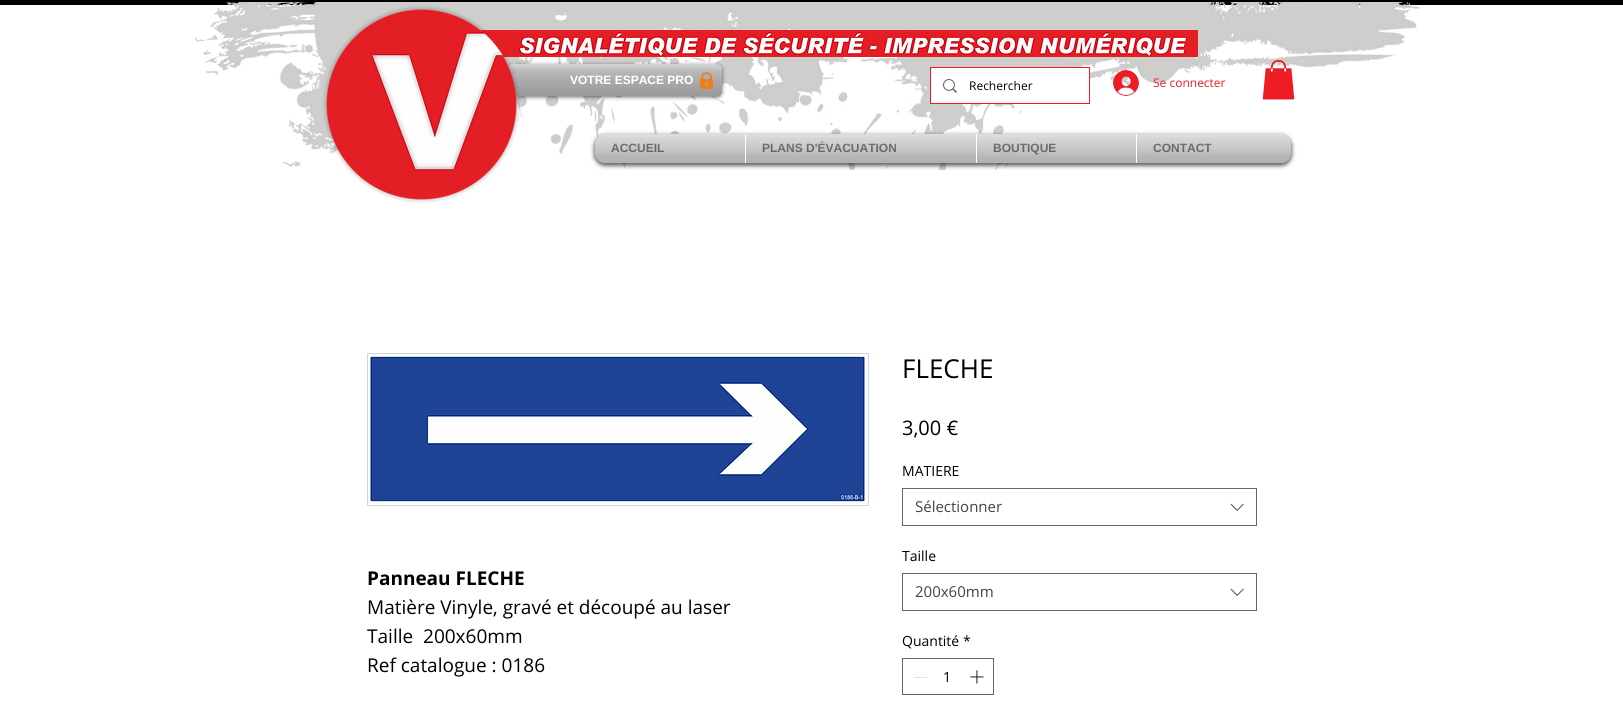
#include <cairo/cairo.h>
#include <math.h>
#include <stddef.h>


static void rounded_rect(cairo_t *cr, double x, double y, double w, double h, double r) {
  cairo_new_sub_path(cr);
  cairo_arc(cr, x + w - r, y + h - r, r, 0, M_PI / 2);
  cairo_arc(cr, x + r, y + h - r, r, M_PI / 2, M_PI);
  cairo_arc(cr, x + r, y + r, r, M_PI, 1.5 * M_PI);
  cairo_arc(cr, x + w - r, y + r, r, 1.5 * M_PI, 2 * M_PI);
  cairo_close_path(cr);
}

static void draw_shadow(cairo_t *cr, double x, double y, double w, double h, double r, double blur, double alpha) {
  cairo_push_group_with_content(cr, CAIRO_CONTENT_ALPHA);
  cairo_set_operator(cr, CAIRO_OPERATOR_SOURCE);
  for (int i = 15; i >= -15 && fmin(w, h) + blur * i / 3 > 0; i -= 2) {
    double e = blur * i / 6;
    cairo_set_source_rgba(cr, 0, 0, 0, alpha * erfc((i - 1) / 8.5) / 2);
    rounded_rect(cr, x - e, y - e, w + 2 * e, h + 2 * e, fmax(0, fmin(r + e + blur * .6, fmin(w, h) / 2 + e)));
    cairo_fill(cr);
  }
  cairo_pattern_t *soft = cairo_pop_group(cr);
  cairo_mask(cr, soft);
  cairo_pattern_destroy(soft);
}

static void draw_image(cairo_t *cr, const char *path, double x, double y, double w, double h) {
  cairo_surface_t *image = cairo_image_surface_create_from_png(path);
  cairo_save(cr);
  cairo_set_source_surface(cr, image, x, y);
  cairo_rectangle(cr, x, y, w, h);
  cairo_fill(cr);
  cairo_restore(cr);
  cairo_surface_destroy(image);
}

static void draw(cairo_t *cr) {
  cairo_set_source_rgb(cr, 1, 1, 1);
  cairo_paint(cr);
  cairo_set_source_rgb(cr, 0, 0, 0);
  cairo_rectangle(cr, 0, 0, 1623, 5);
  cairo_fill(cr);
  draw_image(cr, "images/1.png", 195, 2, 1225, 168);
  draw_image(cr, "images/3.png", 478, 30, 720, 27);
  cairo_set_source_rgb(cr, 0, 0, 0);
  draw_shadow(cr, 507, 65, 215, 32, 5, 2, 0.6);
  cairo_set_source_rgb(cr, 144 / 255.0, 144 / 255.0, 144 / 255.0);
  rounded_rect(cr, 507, 64, 215, 32, 5);
  cairo_fill(cr);
  draw_image(cr, "images/4.png", 507, 64, 215, 32);
  draw_image(cr, "images/2.png", 323, 5, 197, 198);
  draw_image(cr, "images/5.png", 700, 72, 13, 17);
  cairo_rectangle(cr, 930.5, 67.5, 159, 36);
  cairo_set_source_rgb(cr, 237 / 255.0, 28 / 255.0, 36 / 255.0);
  cairo_set_line_width(cr, 1);
  cairo_stroke(cr);
  cairo_set_source_rgb(cr, 1, 1, 1);
  cairo_rectangle(cr, 931, 68, 158, 35);
  cairo_fill(cr);
  draw_image(cr, "images/6.png", 943, 79, 14, 14);
  draw_image(cr, "images/7.png", 1113, 70, 26, 26);
  draw_image(cr, "images/8.png", 1262, 60, 33, 40);
  cairo_set_source_rgb(cr, 0, 0, 0);
  draw_shadow(cr, 594, 135, 698, 31, 11, 2, 0.6);
  draw_image(cr, "images/9.png", 595, 134, 696, 20);
  draw_image(cr, "images/10.png", 595, 143, 696, 20);
  cairo_set_source_rgb(cr, 212 / 255.0, 212 / 255.0, 212 / 255.0);
  cairo_new_path(cr);
  cairo_move_to(cr, 605, 134);
  cairo_line_to(cr, 745, 134);
  cairo_line_to(cr, 745, 163);
  cairo_line_to(cr, 605, 163);
  cairo_curve_to(cr, 599.5, 163, 595, 158.5, 595, 153);
  cairo_line_to(cr, 595, 144);
  cairo_curve_to(cr, 595, 138.5, 599.5, 134, 605, 134);
  cairo_close_path(cr);
  cairo_fill(cr);
  cairo_rectangle(cr, 746, 134, 230, 29);
  cairo_fill(cr);
  cairo_set_source_rgb(cr, 1, 1, 1);
  cairo_rectangle(cr, 745, 134, 1, 29);
  cairo_fill(cr);
  cairo_set_source_rgb(cr, 212 / 255.0, 212 / 255.0, 212 / 255.0);
  cairo_rectangle(cr, 977, 134, 159, 29);
  cairo_fill(cr);
  cairo_set_source_rgb(cr, 1, 1, 1);
  cairo_rectangle(cr, 976, 134, 1, 29);
  cairo_fill(cr);
  cairo_set_source_rgb(cr, 212 / 255.0, 212 / 255.0, 212 / 255.0);
  cairo_new_path(cr);
  cairo_move_to(cr, 1136, 134);
  cairo_line_to(cr, 1281, 134);
  cairo_curve_to(cr, 1286.5, 134, 1291, 138.5, 1291, 144);
  cairo_line_to(cr, 1291, 153);
  cairo_curve_to(cr, 1291, 158.5, 1286.5, 163, 1281, 163);
  cairo_line_to(cr, 1136, 163);
  cairo_close_path(cr);
  cairo_fill(cr);
  cairo_set_source_rgb(cr, 1, 1, 1);
  cairo_rectangle(cr, 1136, 134, 1, 29);
  cairo_fill(cr);
  cairo_rectangle(cr, 367.5, 353.5, 501, 152);
  cairo_set_source_rgb(cr, 212 / 255.0, 212 / 255.0, 212 / 255.0);
  cairo_stroke(cr);
  draw_image(cr, "images/19.png", 368, 354, 499, 150);
  cairo_rectangle(cr, 902.5, 488.5, 354, 37);
  cairo_set_source_rgb(cr, 102 / 255.0, 102 / 255.0, 102 / 255.0);
  cairo_stroke(cr);
  draw_image(cr, "images/20.png", 1230, 503, 14, 8);
  cairo_rectangle(cr, 902.5, 573.5, 354, 37);
  cairo_stroke(cr);
  draw_image(cr, "images/20.png", 1230, 588, 14, 8);
  cairo_rectangle(cr, 902.5, 658.5, 91, 36);
  cairo_stroke(cr);
  cairo_set_source_rgb(cr, 227 / 255.0, 227 / 255.0, 227 / 255.0);
  cairo_rectangle(cr, 914, 677, 13, 1);
  cairo_fill(cr);
  draw_image(cr, "images/21.png", 970, 670, 14, 14);
  cairo_select_font_face(cr, "Liberation Sans", CAIRO_FONT_SLANT_NORMAL, CAIRO_FONT_WEIGHT_BOLD);
  cairo_set_font_size(cr, 12);
  cairo_set_source_rgb(cr, 1, 1, 1);
  cairo_move_to(cr, 570, 84);
  cairo_show_text(cr, "VOTRE ESPACE PRO");
  cairo_select_font_face(cr, "Open Sans", CAIRO_FONT_SLANT_NORMAL, CAIRO_FONT_WEIGHT_NORMAL);
  cairo_set_source_rgb(cr, 0, 0, 0);
  cairo_move_to(cr, 969, 90);
  cairo_show_text(cr, "Rechercher");
  cairo_set_source_rgb(cr, 237 / 255.0, 28 / 255.0, 36 / 255.0);
  cairo_move_to(cr, 1153, 87);
  cairo_show_text(cr, "Se connecter");
  cairo_select_font_face(cr, "Liberation Sans", CAIRO_FONT_SLANT_NORMAL, CAIRO_FONT_WEIGHT_BOLD);
  cairo_set_source_rgb(cr, 96 / 255.0, 96 / 255.0, 96 / 255.0);
  cairo_move_to(cr, 611, 152);
  cairo_show_text(cr, "ACCUEIL");
  draw_image(cr, "images/11.png", 595, 134, 150, 20);
  draw_image(cr, "images/12.png", 595, 137, 150, 26);
  cairo_move_to(cr, 762, 152);
  cairo_show_text(cr, "PLANS D'ÉVACUATION");
  draw_image(cr, "images/13.png", 746, 134, 230, 20);
  draw_image(cr, "images/14.png", 746, 137, 230, 26);
  cairo_move_to(cr, 993, 152);
  cairo_show_text(cr, "BOUTIQUE");
  draw_image(cr, "images/15.png", 977, 134, 159, 21);
  draw_image(cr, "images/16.png", 977, 137, 159, 26);
  cairo_move_to(cr, 1153, 152);
  cairo_show_text(cr, "CONTACT");
  draw_image(cr, "images/17.png", 1137, 134, 154, 20);
  draw_image(cr, "images/18.png", 1137, 137, 154, 26);
  cairo_select_font_face(cr, "Open Sans", CAIRO_FONT_SLANT_NORMAL, CAIRO_FONT_WEIGHT_BOLD);
  cairo_set_font_size(cr, 19);
  cairo_set_source_rgb(cr, 0, 0, 0);
  cairo_move_to(cr, 367, 585);
  cairo_show_text(cr, "Panneau FLECHE");
  cairo_select_font_face(cr, "Open Sans", CAIRO_FONT_SLANT_NORMAL, CAIRO_FONT_WEIGHT_NORMAL);
  cairo_move_to(cr, 367, 614);
  cairo_show_text(cr, "Matière Vinyle, gravé et découpé au laser");
  cairo_move_to(cr, 367, 643);
  cairo_show_text(cr, "Taille  200x60mm");
  cairo_move_to(cr, 367, 672);
  cairo_show_text(cr, "Ref catalogue : 0186");
  cairo_set_font_size(cr, 26);
  cairo_move_to(cr, 902, 378);
  cairo_show_text(cr, "FLECHE");
  cairo_set_font_size(cr, 20);
  cairo_move_to(cr, 902, 435);
  cairo_show_text(cr, "3,00 €");
  cairo_set_font_size(cr, 14);
  cairo_move_to(cr, 902, 476);
  cairo_show_text(cr, "MATIERE");
  cairo_set_font_size(cr, 15);
  cairo_set_source_rgb(cr, 68 / 255.0, 68 / 255.0, 68 / 255.0);
  cairo_move_to(cr, 915, 512);
  cairo_show_text(cr, "Sélectionner");
  cairo_set_font_size(cr, 14);
  cairo_set_source_rgb(cr, 0, 0, 0);
  cairo_move_to(cr, 902, 561);
  cairo_show_text(cr, "Taille");
  cairo_set_font_size(cr, 15);
  cairo_set_source_rgb(cr, 68 / 255.0, 68 / 255.0, 68 / 255.0);
  cairo_move_to(cr, 915, 597);
  cairo_show_text(cr, "200x60mm");
  cairo_set_font_size(cr, 14);
  cairo_set_source_rgb(cr, 0, 0, 0);
  cairo_move_to(cr, 902, 646);
  cairo_show_text(cr, "Quantité");
  cairo_move_to(cr, 963, 646);
  cairo_show_text(cr, "*");
  cairo_move_to(cr, 943, 682);
  cairo_show_text(cr, "1");
}

int main(void) {
  cairo_surface_t *surface = cairo_image_surface_create(CAIRO_FORMAT_RGB24, 1623, 710);
  cairo_t *cr = cairo_create(surface);
  cairo_font_options_t *options = cairo_font_options_create();
  cairo_font_options_set_hint_metrics(options, CAIRO_HINT_METRICS_OFF);
  cairo_font_options_set_hint_style(options, CAIRO_HINT_STYLE_NONE);
  cairo_set_font_options(cr, options);
  cairo_set_miter_limit(cr, 4);
  draw(cr);
  cairo_surface_write_to_png(surface, "out.png");
  cairo_font_options_destroy(options);
  cairo_destroy(cr);
  cairo_surface_destroy(surface);
  return 0;
}
